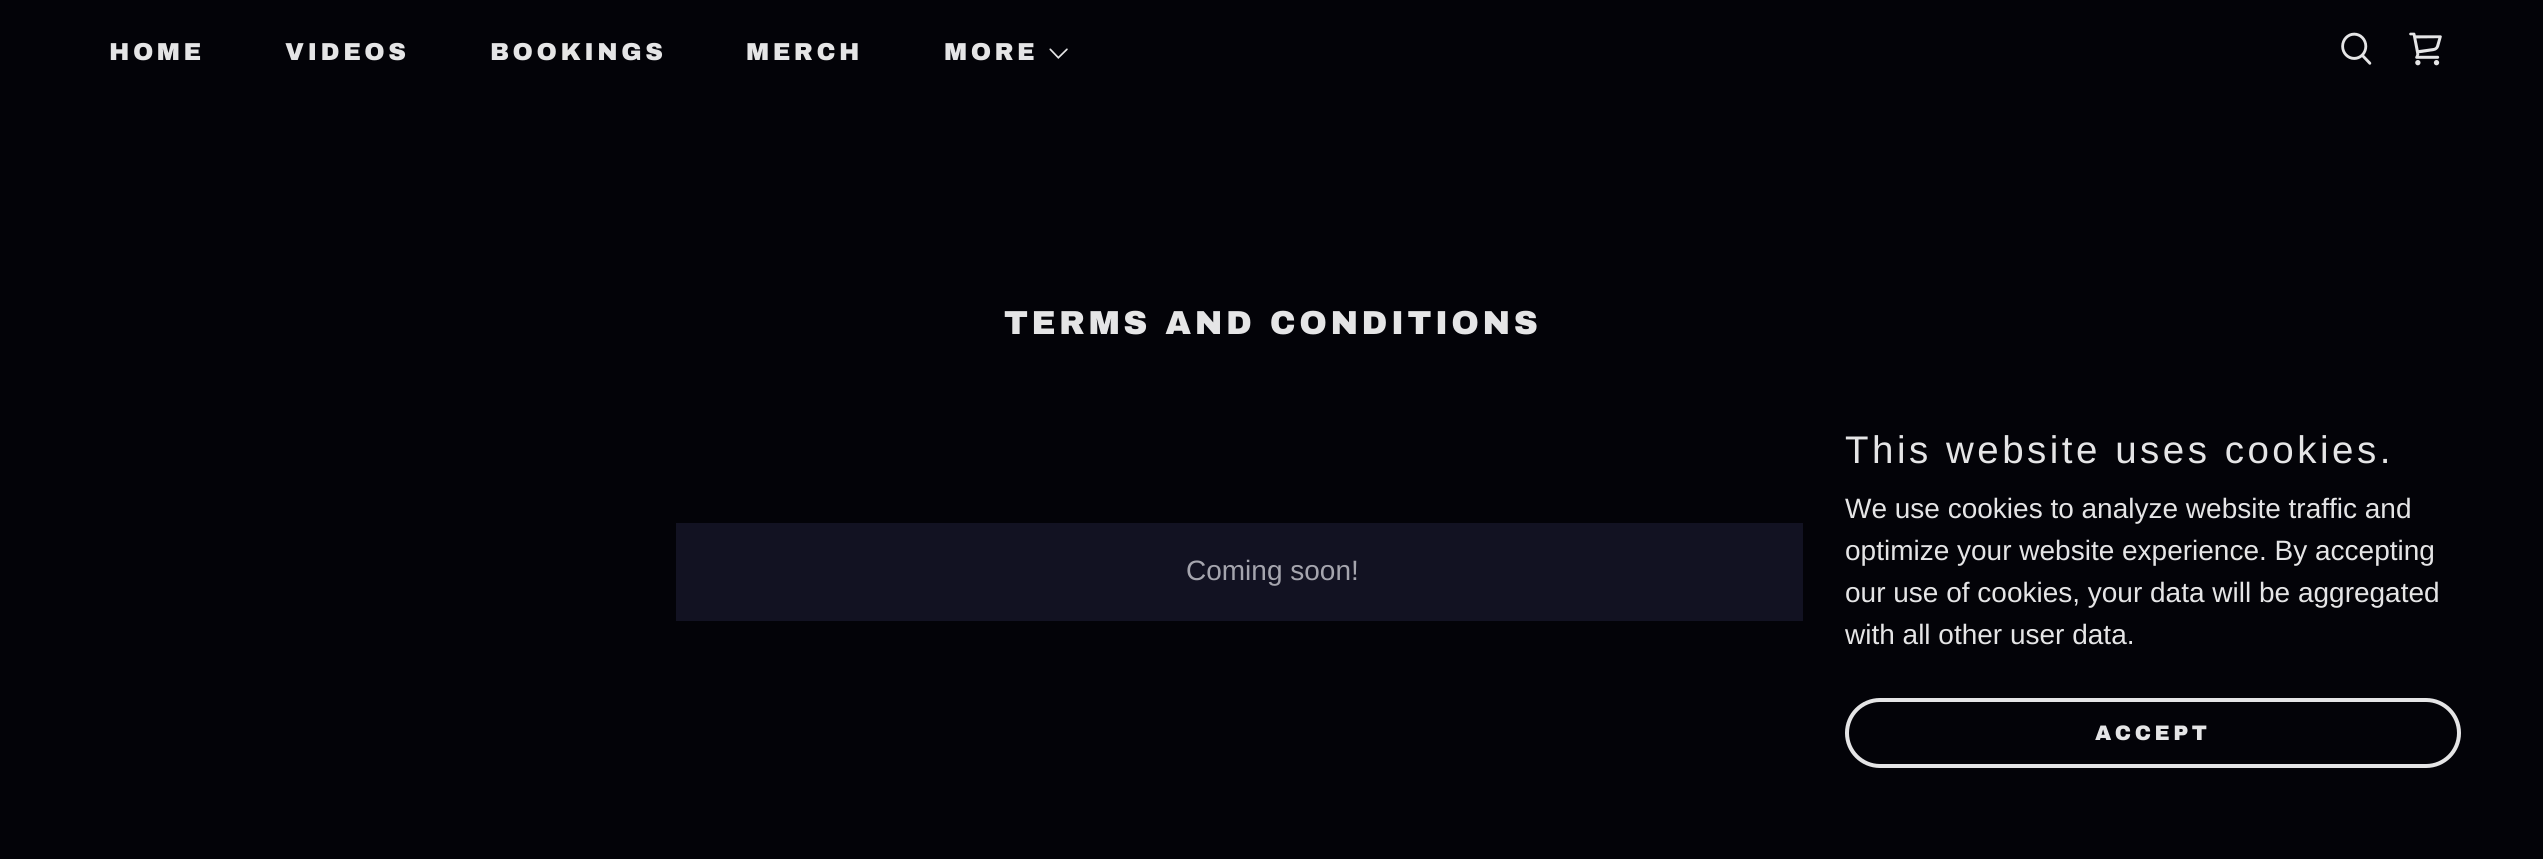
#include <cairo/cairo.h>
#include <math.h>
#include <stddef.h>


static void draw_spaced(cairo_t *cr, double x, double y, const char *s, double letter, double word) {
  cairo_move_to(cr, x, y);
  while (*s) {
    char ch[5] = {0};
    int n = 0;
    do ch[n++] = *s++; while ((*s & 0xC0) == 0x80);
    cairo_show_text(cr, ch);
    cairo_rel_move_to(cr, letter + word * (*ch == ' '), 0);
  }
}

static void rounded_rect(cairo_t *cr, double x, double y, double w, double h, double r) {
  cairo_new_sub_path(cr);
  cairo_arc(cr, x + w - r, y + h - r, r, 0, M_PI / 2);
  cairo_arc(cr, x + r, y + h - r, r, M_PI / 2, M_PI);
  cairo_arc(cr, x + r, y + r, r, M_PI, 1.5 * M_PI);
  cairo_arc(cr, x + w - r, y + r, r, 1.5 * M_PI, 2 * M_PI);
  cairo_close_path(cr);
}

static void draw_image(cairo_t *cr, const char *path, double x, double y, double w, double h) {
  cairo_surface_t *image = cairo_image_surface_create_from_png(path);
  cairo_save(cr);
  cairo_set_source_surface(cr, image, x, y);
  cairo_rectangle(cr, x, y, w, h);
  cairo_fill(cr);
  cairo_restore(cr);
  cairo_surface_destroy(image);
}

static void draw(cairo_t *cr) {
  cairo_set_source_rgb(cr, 3 / 255.0, 3 / 255.0, 8 / 255.0);
  cairo_paint(cr);
  draw_image(cr, "images/1.png", 1049, 48, 19, 11);
  draw_image(cr, "images/2.png", 2341, 32, 31, 33);
  draw_image(cr, "images/3.png", 2409, 32, 33, 34);
  cairo_set_source_rgb(cr, 18 / 255.0, 18 / 255.0, 34 / 255.0);
  cairo_rectangle(cr, 676, 523, 1127, 98);
  cairo_fill(cr);
  rounded_rect(cr, 1847, 700, 612, 66, 33);
  cairo_set_source_rgb(cr, 229 / 255.0, 229 / 255.0, 230 / 255.0);
  cairo_set_line_width(cr, 4);
  cairo_stroke(cr);
  cairo_select_font_face(cr, "Archivo Black Black", CAIRO_FONT_SLANT_NORMAL, CAIRO_FONT_WEIGHT_NORMAL);
  cairo_set_font_size(cr, 24.5);
  draw_spaced(cr, 109, 60, "HOME", 3.5, 0);
  draw_spaced(cr, 285, 60, "VIDEOS", 3.5, 0);
  draw_spaced(cr, 490, 60, "BOOKINGS", 3.5, 0);
  draw_spaced(cr, 746, 60, "MERCH", 3.5, 0);
  draw_spaced(cr, 944, 60, "MORE", 3.5, 0);
  cairo_set_font_size(cr, 33.25);
  draw_spaced(cr, 1004, 334, "TERMS AND CONDITIONS", 3.5, 0);
  cairo_select_font_face(cr, "Liberation Sans", CAIRO_FONT_SLANT_NORMAL, CAIRO_FONT_WEIGHT_NORMAL);
  cairo_set_font_size(cr, 28);
  cairo_set_source_rgb(cr, 165 / 255.0, 165 / 255.0, 174 / 255.0);
  cairo_move_to(cr, 1186, 580);
  cairo_show_text(cr, "Coming soon!");
  cairo_set_font_size(cr, 38.5);
  cairo_set_source_rgb(cr, 229 / 255.0, 229 / 255.0, 230 / 255.0);
  draw_spaced(cr, 1845, 463, "This website uses cookies.", 3.5, 0);
  cairo_set_font_size(cr, 28);
  cairo_move_to(cr, 1845, 518);
  cairo_show_text(cr, "We use cookies to analyze website traffic and");
  cairo_move_to(cr, 1845, 560);
  cairo_show_text(cr, "optimize your website experience. By accepting");
  cairo_move_to(cr, 1845, 602);
  cairo_show_text(cr, "our use of cookies, your data will be aggregated");
  cairo_move_to(cr, 1845, 644);
  cairo_show_text(cr, "with all other user data.");
  cairo_select_font_face(cr, "Archivo Black Black", CAIRO_FONT_SLANT_NORMAL, CAIRO_FONT_WEIGHT_NORMAL);
  cairo_set_font_size(cr, 21);
  draw_spaced(cr, 2095, 740, "ACCEPT", 3.5, 0);
}

int main(void) {
  cairo_surface_t *surface = cairo_image_surface_create(CAIRO_FORMAT_RGB24, 2543, 859);
  cairo_t *cr = cairo_create(surface);
  cairo_font_options_t *options = cairo_font_options_create();
  cairo_font_options_set_hint_metrics(options, CAIRO_HINT_METRICS_OFF);
  cairo_font_options_set_hint_style(options, CAIRO_HINT_STYLE_NONE);
  cairo_set_font_options(cr, options);
  cairo_set_miter_limit(cr, 4);
  draw(cr);
  cairo_surface_write_to_png(surface, "out.png");
  cairo_font_options_destroy(options);
  cairo_destroy(cr);
  cairo_surface_destroy(surface);
  return 0;
}
